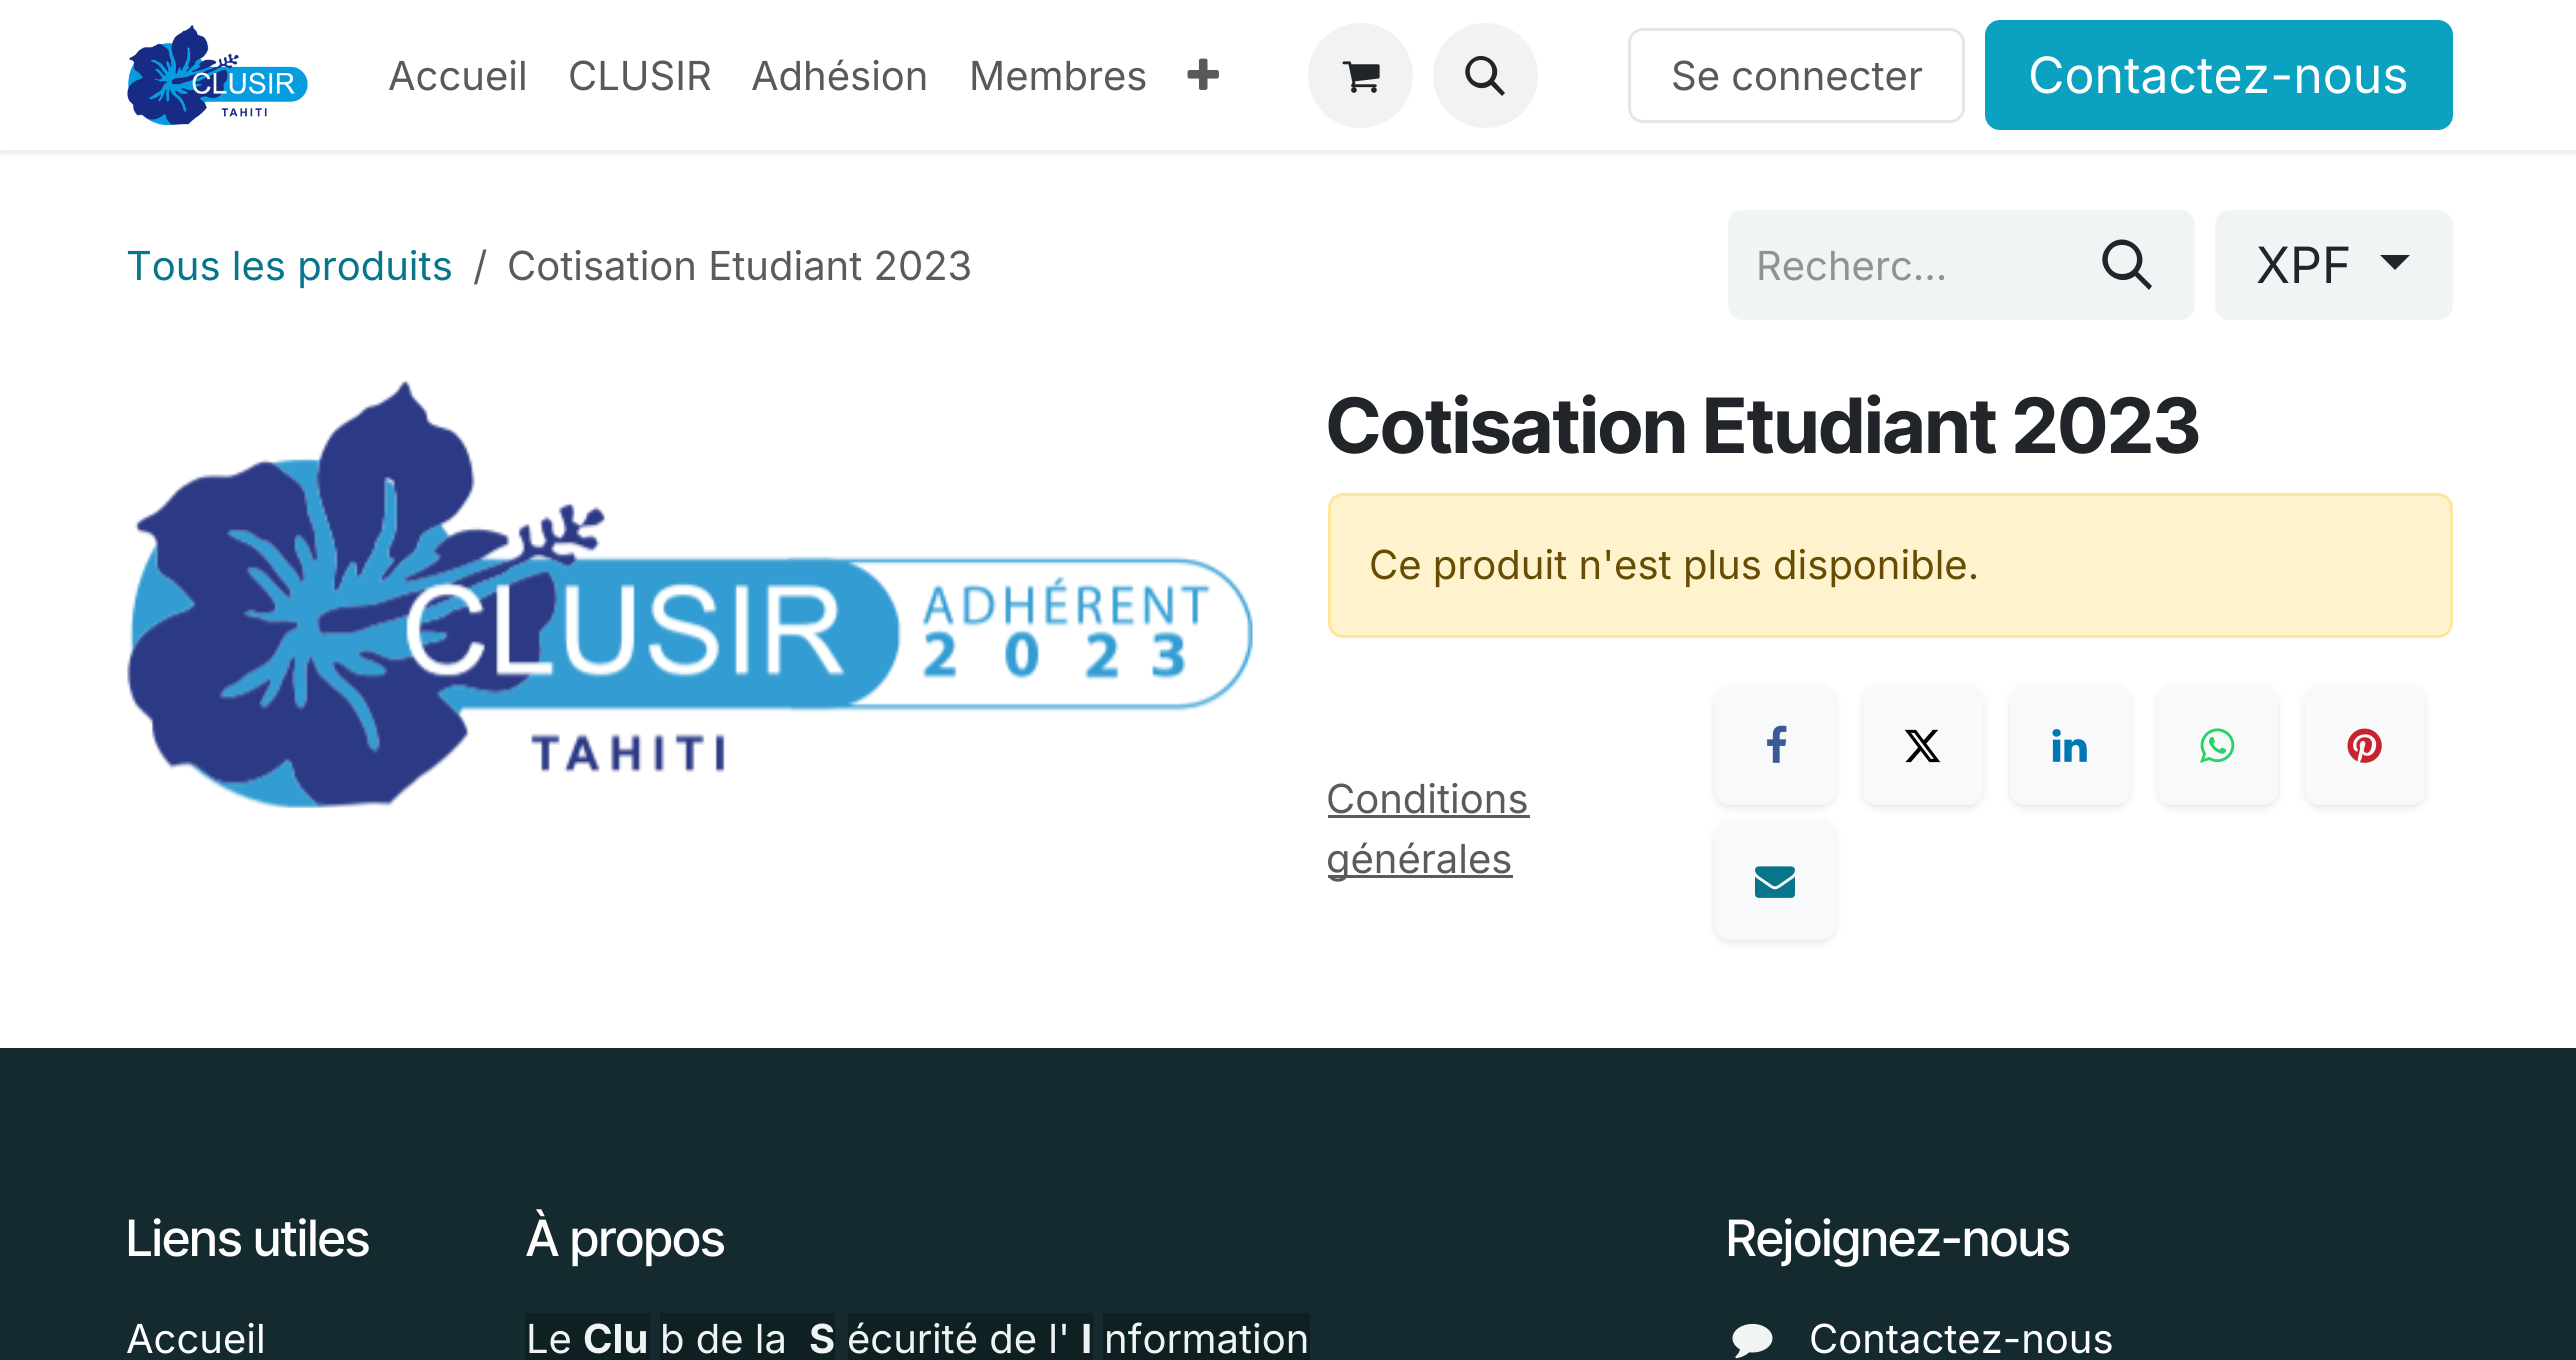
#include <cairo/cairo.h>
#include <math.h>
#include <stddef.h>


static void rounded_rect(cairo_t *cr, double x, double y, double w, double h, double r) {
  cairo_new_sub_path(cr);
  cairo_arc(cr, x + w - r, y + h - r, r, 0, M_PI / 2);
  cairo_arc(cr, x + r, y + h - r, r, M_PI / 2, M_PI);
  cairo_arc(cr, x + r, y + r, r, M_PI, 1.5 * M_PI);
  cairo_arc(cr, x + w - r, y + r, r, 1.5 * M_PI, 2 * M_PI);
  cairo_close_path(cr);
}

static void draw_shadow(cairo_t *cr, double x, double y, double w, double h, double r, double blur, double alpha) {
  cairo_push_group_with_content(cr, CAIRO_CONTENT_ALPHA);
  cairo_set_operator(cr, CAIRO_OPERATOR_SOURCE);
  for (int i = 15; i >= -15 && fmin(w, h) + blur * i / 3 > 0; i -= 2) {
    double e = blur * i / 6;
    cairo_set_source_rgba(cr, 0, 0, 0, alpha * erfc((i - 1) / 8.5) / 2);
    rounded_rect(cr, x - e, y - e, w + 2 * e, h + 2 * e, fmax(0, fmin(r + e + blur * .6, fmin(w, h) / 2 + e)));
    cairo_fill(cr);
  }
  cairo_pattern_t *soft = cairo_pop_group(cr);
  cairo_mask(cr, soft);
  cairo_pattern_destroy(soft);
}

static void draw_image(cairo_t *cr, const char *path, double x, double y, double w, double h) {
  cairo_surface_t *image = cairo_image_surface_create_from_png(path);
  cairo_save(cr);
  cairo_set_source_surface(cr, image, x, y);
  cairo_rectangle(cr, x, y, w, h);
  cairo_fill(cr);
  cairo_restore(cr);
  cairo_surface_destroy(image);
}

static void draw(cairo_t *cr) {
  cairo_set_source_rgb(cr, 1, 1, 1);
  cairo_paint(cr);
  cairo_save(cr);
  cairo_rectangle(cr, 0, 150, 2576, 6);
  cairo_clip(cr);
  cairo_set_source_rgb(cr, 0, 0, 0);
  draw_shadow(cr, 0, 3, 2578, 150, 0, 4, 0.1);
  cairo_restore(cr);
  draw_image(cr, "images/1.png", 127, 25, 181, 100);
  draw_image(cr, "images/2.png", 1187, 58, 32, 32);
  cairo_set_source_rgb(cr, 242 / 255.0, 242 / 255.0, 242 / 255.0);
  cairo_arc(cr, 1360.5, 75.5, 52.5, 0, 2 * M_PI);
  cairo_fill(cr);
  draw_image(cr, "images/3.png", 1342, 61, 38, 32);
  cairo_arc(cr, 1485.5, 75.5, 52.5, 0, 2 * M_PI);
  cairo_fill(cr);
  cairo_set_source_rgb(cr, 33 / 255.0, 37 / 255.0, 41 / 255.0);
  cairo_new_path(cr);
  cairo_move_to(cr, 1469, 62);
  cairo_curve_to(cr, 1482, 46, 1506, 65, 1494, 81);
  cairo_line_to(cr, 1505, 93);
  cairo_line_to(cr, 1502, 96);
  cairo_line_to(cr, 1491, 85);
  cairo_curve_to(cr, 1476, 96, 1457, 76, 1469, 62);
  cairo_close_path(cr);
  cairo_move_to(cr, 1481, 60);
  cairo_curve_to(cr, 1466, 60, 1466, 83, 1481, 83);
  cairo_curve_to(cr, 1496, 83, 1496, 60, 1481, 60);
  cairo_close_path(cr);
  cairo_fill(cr);
  rounded_rect(cr, 1629.5, 29.5, 334, 92, 13.5);
  cairo_set_source_rgb(cr, 230 / 255.0, 230 / 255.0, 230 / 255.0);
  cairo_set_line_width(cr, 3);
  cairo_stroke(cr);
  cairo_set_source_rgb(cr, 10 / 255.0, 162 / 255.0, 192 / 255.0);
  rounded_rect(cr, 1986.5, 21.5, 465, 107, 13.5);
  cairo_fill_preserve(cr);
  cairo_stroke(cr);
  cairo_set_source_rgb(cr, 240 / 255.0, 244 / 255.0, 245 / 255.0);
  cairo_new_path(cr);
  cairo_move_to(cr, 1743, 210);
  cairo_line_to(cr, 2063, 210);
  cairo_line_to(cr, 2063, 320);
  cairo_line_to(cr, 1743, 320);
  cairo_curve_to(cr, 1734.5, 320, 1728, 313.5, 1728, 305);
  cairo_line_to(cr, 1728, 225);
  cairo_curve_to(cr, 1728, 216.5, 1734.5, 210, 1743, 210);
  cairo_close_path(cr);
  cairo_fill(cr);
  cairo_new_path(cr);
  cairo_move_to(cr, 2061.5, 211.5);
  cairo_line_to(cr, 2180, 211.5);
  cairo_curve_to(cr, 2187.5, 211.5, 2193.5, 217.5, 2193.5, 225);
  cairo_line_to(cr, 2193.5, 305);
  cairo_curve_to(cr, 2193.5, 312.5, 2187.5, 318.5, 2180, 318.5);
  cairo_line_to(cr, 2061.5, 318.5);
  cairo_close_path(cr);
  cairo_fill_preserve(cr);
  cairo_stroke(cr);
  cairo_set_source_rgb(cr, 33 / 255.0, 37 / 255.0, 41 / 255.0);
  cairo_new_path(cr);
  cairo_move_to(cr, 2107, 247);
  cairo_curve_to(cr, 2123, 227, 2154, 251, 2138, 272);
  cairo_line_to(cr, 2152, 286);
  cairo_line_to(cr, 2149, 290);
  cairo_line_to(cr, 2135, 276);
  cairo_curve_to(cr, 2116, 290, 2092, 265, 2107, 247);
  cairo_close_path(cr);
  cairo_move_to(cr, 2122, 245);
  cairo_curve_to(cr, 2103, 245, 2103, 274, 2122, 274);
  cairo_curve_to(cr, 2142, 274, 2142, 245, 2122, 245);
  cairo_close_path(cr);
  cairo_fill(cr);
  cairo_set_source_rgb(cr, 240 / 255.0, 244 / 255.0, 245 / 255.0);
  rounded_rect(cr, 2216.5, 211.5, 235, 107, 13.5);
  cairo_fill_preserve(cr);
  cairo_stroke(cr);
  cairo_set_source_rgb(cr, 33 / 255.0, 37 / 255.0, 41 / 255.0);
  cairo_new_path(cr);
  cairo_move_to(cr, 2380, 255);
  cairo_line_to(cr, 2410, 255);
  cairo_line_to(cr, 2395, 270);
  cairo_close_path(cr);
  cairo_fill(cr);
  draw_image(cr, "images/4.png", 127, 380, 1126, 428);
  cairo_set_source_rgb(cr, 1, 243 / 255.0, 205 / 255.0);
  rounded_rect(cr, 1329.5, 494.5, 1122, 142, 13.5);
  cairo_fill_preserve(cr);
  cairo_set_source_rgb(cr, 1, 230 / 255.0, 156 / 255.0);
  cairo_stroke(cr);
  cairo_set_source_rgb(cr, 89 / 255.0, 92 / 255.0, 95 / 255.0);
  cairo_rectangle(cr, 1328, 815, 202, 3);
  cairo_fill(cr);
  cairo_rectangle(cr, 1328, 875, 185, 3);
  cairo_fill(cr);
  cairo_set_source_rgb(cr, 0, 0, 0);
  draw_shadow(cr, 1715, 688, 120, 120, 15, 4, 0.1);
  cairo_set_source_rgb(cr, 248 / 255.0, 249 / 255.0, 250 / 255.0);
  rounded_rect(cr, 1715, 685, 120, 120, 15);
  cairo_fill(cr);
  draw_image(cr, "images/5.png", 1767, 725, 20, 38);
  cairo_set_source_rgb(cr, 0, 0, 0);
  draw_shadow(cr, 1863, 688, 120, 120, 15, 4, 0.1);
  cairo_set_source_rgb(cr, 248 / 255.0, 249 / 255.0, 250 / 255.0);
  rounded_rect(cr, 1863, 685, 120, 120, 15);
  cairo_fill(cr);
  draw_image(cr, "images/6.png", 1904, 729, 37, 34);
  cairo_set_source_rgb(cr, 0, 0, 0);
  draw_shadow(cr, 2010, 688, 120, 120, 15, 4, 0.1);
  cairo_set_source_rgb(cr, 248 / 255.0, 249 / 255.0, 250 / 255.0);
  rounded_rect(cr, 2010, 685, 120, 120, 15);
  cairo_fill(cr);
  draw_image(cr, "images/7.png", 2052, 729, 35, 33);
  cairo_set_source_rgb(cr, 0, 0, 0);
  draw_shadow(cr, 2158, 688, 120, 120, 15, 4, 0.1);
  cairo_set_source_rgb(cr, 248 / 255.0, 249 / 255.0, 250 / 255.0);
  rounded_rect(cr, 2158, 685, 120, 120, 15);
  cairo_fill(cr);
  draw_image(cr, "images/8.png", 2200, 728, 35, 35);
  cairo_set_source_rgb(cr, 0, 0, 0);
  draw_shadow(cr, 2305, 688, 120, 120, 15, 4, 0.1);
  cairo_set_source_rgb(cr, 248 / 255.0, 249 / 255.0, 250 / 255.0);
  rounded_rect(cr, 2305, 685, 120, 120, 15);
  cairo_fill(cr);
  draw_image(cr, "images/9.png", 2347, 728, 35, 35);
  cairo_set_source_rgb(cr, 0, 0, 0);
  draw_shadow(cr, 1715, 823, 120, 120, 15, 4, 0.1);
  cairo_set_source_rgb(cr, 248 / 255.0, 249 / 255.0, 250 / 255.0);
  rounded_rect(cr, 1715, 820, 120, 120, 15);
  cairo_fill(cr);
  draw_image(cr, "images/10.png", 1755, 866, 40, 32);
  cairo_set_source_rgb(cr, 20 / 255.0, 42 / 255.0, 46 / 255.0);
  cairo_rectangle(cr, 0, 1048, 2576, 312);
  cairo_fill(cr);
  cairo_set_source_rgb(cr, 15 / 255.0, 32 / 255.0, 35 / 255.0);
  cairo_rectangle(cr, 525, 1313, 125, 47);
  cairo_fill(cr);
  cairo_rectangle(cr, 660, 1313, 175, 47);
  cairo_fill(cr);
  cairo_rectangle(cr, 848, 1313, 245, 47);
  cairo_fill(cr);
  cairo_rectangle(cr, 1103, 1313, 207, 47);
  cairo_fill(cr);
  draw_image(cr, "images/11.png", 1732, 1323, 41, 36);
  cairo_select_font_face(cr, "Inter", CAIRO_FONT_SLANT_NORMAL, CAIRO_FONT_WEIGHT_NORMAL);
  cairo_set_font_size(cr, 40);
  cairo_set_source_rgb(cr, 89 / 255.0, 89 / 255.0, 89 / 255.0);
  cairo_move_to(cr, 388, 90);
  cairo_show_text(cr, "Accueil");
  cairo_move_to(cr, 568, 90);
  cairo_show_text(cr, "CLUSIR");
  cairo_move_to(cr, 751, 90);
  cairo_show_text(cr, "Adhésion");
  cairo_move_to(cr, 969, 90);
  cairo_show_text(cr, "Membres");
  cairo_move_to(cr, 1671, 90);
  cairo_show_text(cr, "Se connecter");
  cairo_set_font_size(cr, 50);
  cairo_set_source_rgb(cr, 1, 1, 1);
  cairo_move_to(cr, 2028, 93);
  cairo_show_text(cr, "Contactez-nous");
  cairo_set_font_size(cr, 40);
  cairo_set_source_rgb(cr, 7 / 255.0, 117 / 255.0, 139 / 255.0);
  cairo_move_to(cr, 126, 280);
  cairo_show_text(cr, "Tous les produits");
  cairo_set_source_rgb(cr, 89 / 255.0, 92 / 255.0, 95 / 255.0);
  cairo_move_to(cr, 473, 280);
  cairo_show_text(cr, "/");
  cairo_move_to(cr, 507, 280);
  cairo_show_text(cr, "Cotisation Etudiant 2023");
  cairo_set_source_rgb(cr, 144 / 255.0, 146 / 255.0, 148 / 255.0);
  cairo_move_to(cr, 1756, 280);
  cairo_show_text(cr, "Recherc…");
  cairo_set_font_size(cr, 50);
  cairo_set_source_rgb(cr, 33 / 255.0, 37 / 255.0, 41 / 255.0);
  cairo_move_to(cr, 2256, 283);
  cairo_show_text(cr, "XPF");
  cairo_select_font_face(cr, "Inter Tight", CAIRO_FONT_SLANT_NORMAL, CAIRO_FONT_WEIGHT_BOLD);
  cairo_set_font_size(cr, 76.25);
  cairo_move_to(cr, 1326, 453);
  cairo_show_text(cr, "Cotisation Etudiant 2023");
  cairo_select_font_face(cr, "Inter", CAIRO_FONT_SLANT_NORMAL, CAIRO_FONT_WEIGHT_NORMAL);
  cairo_set_font_size(cr, 40);
  cairo_set_source_rgb(cr, 102 / 255.0, 77 / 255.0, 3 / 255.0);
  cairo_move_to(cr, 1369, 579);
  cairo_show_text(cr, "Ce produit n'est plus disponible.");
  cairo_set_source_rgb(cr, 89 / 255.0, 92 / 255.0, 95 / 255.0);
  cairo_move_to(cr, 1326, 813);
  cairo_show_text(cr, "Conditions");
  cairo_move_to(cr, 1326, 873);
  cairo_show_text(cr, "générales");
  cairo_select_font_face(cr, "Inter Tight Medium", CAIRO_FONT_SLANT_NORMAL, CAIRO_FONT_WEIGHT_NORMAL);
  cairo_set_font_size(cr, 50);
  cairo_set_source_rgb(cr, 1, 1, 1);
  cairo_move_to(cr, 126, 1256);
  cairo_show_text(cr, "Liens utiles");
  cairo_select_font_face(cr, "Inter", CAIRO_FONT_SLANT_NORMAL, CAIRO_FONT_WEIGHT_NORMAL);
  cairo_set_font_size(cr, 40);
  cairo_move_to(cr, 126, 1353);
  cairo_show_text(cr, "Accueil");
  cairo_select_font_face(cr, "Inter Tight Medium", CAIRO_FONT_SLANT_NORMAL, CAIRO_FONT_WEIGHT_NORMAL);
  cairo_set_font_size(cr, 50);
  cairo_move_to(cr, 526, 1256);
  cairo_show_text(cr, "À propos");
  cairo_select_font_face(cr, "Inter", CAIRO_FONT_SLANT_NORMAL, CAIRO_FONT_WEIGHT_NORMAL);
  cairo_set_font_size(cr, 40);
  cairo_set_source_rgb(cr, 240 / 255.0, 244 / 255.0, 245 / 255.0);
  cairo_move_to(cr, 526, 1353);
  cairo_show_text(cr, "Le");
  cairo_select_font_face(cr, "Inter", CAIRO_FONT_SLANT_NORMAL, CAIRO_FONT_WEIGHT_BOLD);
  cairo_move_to(cr, 583, 1353);
  cairo_show_text(cr, "Clu");
  cairo_select_font_face(cr, "Inter", CAIRO_FONT_SLANT_NORMAL, CAIRO_FONT_WEIGHT_NORMAL);
  cairo_move_to(cr, 660, 1353);
  cairo_show_text(cr, "b de la");
  cairo_select_font_face(cr, "Inter", CAIRO_FONT_SLANT_NORMAL, CAIRO_FONT_WEIGHT_BOLD);
  cairo_move_to(cr, 809, 1353);
  cairo_show_text(cr, "S");
  cairo_select_font_face(cr, "Inter", CAIRO_FONT_SLANT_NORMAL, CAIRO_FONT_WEIGHT_NORMAL);
  cairo_move_to(cr, 847, 1353);
  cairo_show_text(cr, "écurité de l'");
  cairo_select_font_face(cr, "Inter", CAIRO_FONT_SLANT_NORMAL, CAIRO_FONT_WEIGHT_BOLD);
  cairo_move_to(cr, 1081, 1353);
  cairo_show_text(cr, "I");
  cairo_select_font_face(cr, "Inter", CAIRO_FONT_SLANT_NORMAL, CAIRO_FONT_WEIGHT_NORMAL);
  cairo_move_to(cr, 1104, 1353);
  cairo_show_text(cr, "nformation");
  cairo_select_font_face(cr, "Inter Tight Medium", CAIRO_FONT_SLANT_NORMAL, CAIRO_FONT_WEIGHT_NORMAL);
  cairo_set_font_size(cr, 50);
  cairo_set_source_rgb(cr, 1, 1, 1);
  cairo_move_to(cr, 1726, 1256);
  cairo_show_text(cr, "Rejoignez-nous");
  cairo_select_font_face(cr, "Inter", CAIRO_FONT_SLANT_NORMAL, CAIRO_FONT_WEIGHT_NORMAL);
  cairo_set_font_size(cr, 40);
  cairo_move_to(cr, 1809, 1353);
  cairo_show_text(cr, "Contactez-nous");
}

int main(void) {
  cairo_surface_t *surface = cairo_image_surface_create(CAIRO_FORMAT_RGB24, 2576, 1360);
  cairo_t *cr = cairo_create(surface);
  cairo_font_options_t *options = cairo_font_options_create();
  cairo_font_options_set_hint_metrics(options, CAIRO_HINT_METRICS_OFF);
  cairo_font_options_set_hint_style(options, CAIRO_HINT_STYLE_NONE);
  cairo_set_font_options(cr, options);
  cairo_set_miter_limit(cr, 4);
  draw(cr);
  cairo_surface_write_to_png(surface, "out.png");
  cairo_font_options_destroy(options);
  cairo_destroy(cr);
  cairo_surface_destroy(surface);
  return 0;
}
